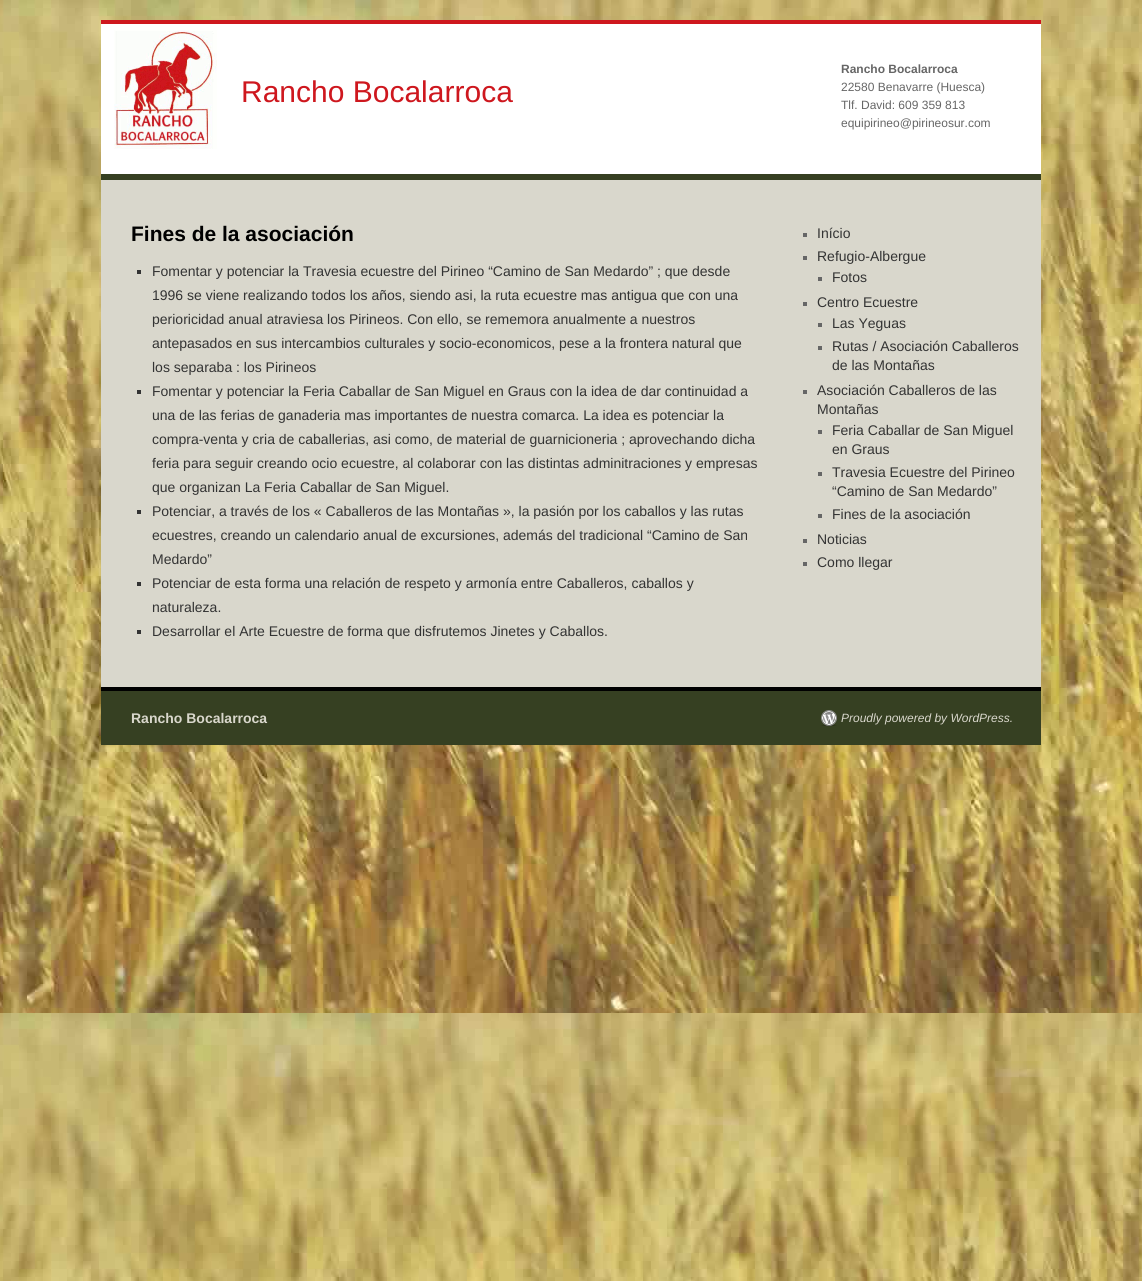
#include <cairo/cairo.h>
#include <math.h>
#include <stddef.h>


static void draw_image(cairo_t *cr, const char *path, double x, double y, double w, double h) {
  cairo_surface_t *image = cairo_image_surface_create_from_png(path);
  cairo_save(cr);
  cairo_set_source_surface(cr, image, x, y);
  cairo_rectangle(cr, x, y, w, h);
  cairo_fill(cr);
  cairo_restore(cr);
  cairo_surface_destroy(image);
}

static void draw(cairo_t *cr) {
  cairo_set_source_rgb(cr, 1, 1, 1);
  cairo_paint(cr);
  draw_image(cr, "images/1.png", 0, 0, 1142, 1281);
  cairo_set_source_rgb(cr, 217 / 255.0, 215 / 255.0, 204 / 255.0);
  cairo_rectangle(cr, 101, 180, 940, 507);
  cairo_fill(cr);
  cairo_set_source_rgb(cr, 1, 1, 1);
  cairo_rectangle(cr, 101, 24, 940, 150);
  cairo_fill(cr);
  draw_image(cr, "images/2.png", 114, 30, 103, 119);
  cairo_set_source_rgb(cr, 206 / 255.0, 23 / 255.0, 30 / 255.0);
  cairo_rectangle(cr, 101, 20, 940, 4);
  cairo_fill(cr);
  cairo_set_source_rgb(cr, 54 / 255.0, 64 / 255.0, 34 / 255.0);
  cairo_rectangle(cr, 101, 174, 940, 6);
  cairo_fill(cr);
  cairo_set_source_rgb(cr, 51 / 255.0, 51 / 255.0, 51 / 255.0);
  cairo_rectangle(cr, 137, 270, 4, 4);
  cairo_fill(cr);
  cairo_rectangle(cr, 137, 390, 4, 4);
  cairo_fill(cr);
  cairo_rectangle(cr, 137, 510, 4, 4);
  cairo_fill(cr);
  cairo_rectangle(cr, 137, 582, 4, 4);
  cairo_fill(cr);
  cairo_rectangle(cr, 137, 630, 4, 4);
  cairo_fill(cr);
  cairo_set_source_rgb(cr, 102 / 255.0, 102 / 255.0, 102 / 255.0);
  cairo_rectangle(cr, 803, 233, 4, 4);
  cairo_fill(cr);
  cairo_rectangle(cr, 803, 256, 4, 4);
  cairo_fill(cr);
  cairo_rectangle(cr, 818, 277, 4, 4);
  cairo_fill(cr);
  cairo_rectangle(cr, 803, 302, 4, 4);
  cairo_fill(cr);
  cairo_rectangle(cr, 818, 323, 4, 4);
  cairo_fill(cr);
  cairo_rectangle(cr, 818, 346, 4, 4);
  cairo_fill(cr);
  cairo_rectangle(cr, 803, 390, 4, 4);
  cairo_fill(cr);
  cairo_rectangle(cr, 818, 430, 4, 4);
  cairo_fill(cr);
  cairo_rectangle(cr, 818, 472, 4, 4);
  cairo_fill(cr);
  cairo_rectangle(cr, 818, 514, 4, 4);
  cairo_fill(cr);
  cairo_rectangle(cr, 803, 539, 4, 4);
  cairo_fill(cr);
  cairo_rectangle(cr, 803, 562, 4, 4);
  cairo_fill(cr);
  cairo_set_source_rgb(cr, 54 / 255.0, 64 / 255.0, 34 / 255.0);
  cairo_rectangle(cr, 101, 691, 940, 54);
  cairo_fill(cr);
  cairo_set_source_rgb(cr, 0, 0, 0);
  cairo_rectangle(cr, 101, 687, 940, 4);
  cairo_fill(cr);
  draw_image(cr, "images/3.png", 821, 710, 16, 16);
  cairo_select_font_face(cr, "Liberation Sans", CAIRO_FONT_SLANT_NORMAL, CAIRO_FONT_WEIGHT_NORMAL);
  cairo_set_font_size(cr, 30);
  cairo_set_source_rgb(cr, 206 / 255.0, 23 / 255.0, 30 / 255.0);
  cairo_move_to(cr, 241, 102);
  cairo_show_text(cr, "Rancho Bocalarroca");
  cairo_select_font_face(cr, "Liberation Sans", CAIRO_FONT_SLANT_NORMAL, CAIRO_FONT_WEIGHT_BOLD);
  cairo_set_font_size(cr, 12);
  cairo_set_source_rgb(cr, 102 / 255.0, 102 / 255.0, 102 / 255.0);
  cairo_move_to(cr, 841, 73);
  cairo_show_text(cr, "Rancho Bocalarroca");
  cairo_select_font_face(cr, "Liberation Sans", CAIRO_FONT_SLANT_NORMAL, CAIRO_FONT_WEIGHT_NORMAL);
  cairo_move_to(cr, 841, 91);
  cairo_show_text(cr, "22580 Benavarre (Huesca)");
  cairo_move_to(cr, 841, 109);
  cairo_show_text(cr, "Tlf. David: 609 359 813");
  cairo_move_to(cr, 841, 127);
  cairo_show_text(cr, "equipirineo@pirineosur.com");
  cairo_select_font_face(cr, "Liberation Sans", CAIRO_FONT_SLANT_NORMAL, CAIRO_FONT_WEIGHT_BOLD);
  cairo_set_font_size(cr, 21);
  cairo_set_source_rgb(cr, 0, 0, 0);
  cairo_move_to(cr, 131, 241);
  cairo_show_text(cr, "Fines de la asociación");
  cairo_select_font_face(cr, "Liberation Sans", CAIRO_FONT_SLANT_NORMAL, CAIRO_FONT_WEIGHT_NORMAL);
  cairo_set_font_size(cr, 14);
  cairo_set_source_rgb(cr, 51 / 255.0, 51 / 255.0, 51 / 255.0);
  cairo_move_to(cr, 152, 276);
  cairo_show_text(cr, "Fomentar y potenciar la Travesia ecuestre del Pirineo “Camino de San Medardo” ; que desde");
  cairo_move_to(cr, 152, 300);
  cairo_show_text(cr, "1996 se viene realizando todos los años, siendo asi, la ruta ecuestre mas antigua que con una");
  cairo_move_to(cr, 152, 324);
  cairo_show_text(cr, "perioricidad anual atraviesa los Pirineos. Con ello, se rememora anualmente a nuestros");
  cairo_move_to(cr, 152, 348);
  cairo_show_text(cr, "antepasados en sus intercambios culturales y socio-economicos, pese a la frontera natural que");
  cairo_move_to(cr, 152, 372);
  cairo_show_text(cr, "los separaba : los Pirineos");
  cairo_move_to(cr, 152, 396);
  cairo_show_text(cr, "Fomentar y potenciar la Feria Caballar de San Miguel en Graus con la idea de dar continuidad a");
  cairo_move_to(cr, 152, 420);
  cairo_show_text(cr, "una de las ferias de ganaderia mas importantes de nuestra comarca. La idea es potenciar la");
  cairo_move_to(cr, 152, 444);
  cairo_show_text(cr, "compra-venta y cria de caballerias, asi como, de material de guarnicioneria ; aprovechando dicha");
  cairo_move_to(cr, 152, 468);
  cairo_show_text(cr, "feria para seguir creando ocio ecuestre, al colaborar con las distintas adminitraciones y empresas");
  cairo_move_to(cr, 152, 492);
  cairo_show_text(cr, "que organizan La Feria Caballar de San Miguel.");
  cairo_move_to(cr, 152, 516);
  cairo_show_text(cr, "Potenciar, a través de los « Caballeros de las Montañas », la pasión por los caballos y las rutas");
  cairo_move_to(cr, 152, 540);
  cairo_show_text(cr, "ecuestres, creando un calendario anual de excursiones, además del tradicional “Camino de San");
  cairo_move_to(cr, 152, 564);
  cairo_show_text(cr, "Medardo”");
  cairo_move_to(cr, 152, 588);
  cairo_show_text(cr, "Potenciar de esta forma una relación de respeto y armonía entre Caballeros, caballos y");
  cairo_move_to(cr, 152, 612);
  cairo_show_text(cr, "naturaleza.");
  cairo_move_to(cr, 152, 636);
  cairo_show_text(cr, "Desarrollar el Arte Ecuestre de forma que disfrutemos Jinetes y Caballos.");
  cairo_move_to(cr, 817, 238);
  cairo_show_text(cr, "Início");
  cairo_move_to(cr, 817, 261);
  cairo_show_text(cr, "Refugio-Albergue");
  cairo_move_to(cr, 832, 282);
  cairo_show_text(cr, "Fotos");
  cairo_move_to(cr, 817, 307);
  cairo_show_text(cr, "Centro Ecuestre");
  cairo_move_to(cr, 832, 328);
  cairo_show_text(cr, "Las Yeguas");
  cairo_move_to(cr, 832, 351);
  cairo_show_text(cr, "Rutas / Asociación Caballeros");
  cairo_move_to(cr, 832, 370);
  cairo_show_text(cr, "de las Montañas");
  cairo_move_to(cr, 817, 395);
  cairo_show_text(cr, "Asociación Caballeros de las");
  cairo_move_to(cr, 817, 414);
  cairo_show_text(cr, "Montañas");
  cairo_move_to(cr, 832, 435);
  cairo_show_text(cr, "Feria Caballar de San Miguel");
  cairo_move_to(cr, 832, 454);
  cairo_show_text(cr, "en Graus");
  cairo_move_to(cr, 832, 477);
  cairo_show_text(cr, "Travesia Ecuestre del Pirineo");
  cairo_move_to(cr, 832, 496);
  cairo_show_text(cr, "“Camino de San Medardo”");
  cairo_move_to(cr, 832, 519);
  cairo_show_text(cr, "Fines de la asociación");
  cairo_move_to(cr, 817, 544);
  cairo_show_text(cr, "Noticias");
  cairo_move_to(cr, 817, 567);
  cairo_show_text(cr, "Como llegar");
  cairo_select_font_face(cr, "Liberation Sans", CAIRO_FONT_SLANT_NORMAL, CAIRO_FONT_WEIGHT_BOLD);
  cairo_set_source_rgb(cr, 217 / 255.0, 215 / 255.0, 204 / 255.0);
  cairo_move_to(cr, 131, 723);
  cairo_show_text(cr, "Rancho Bocalarroca");
  cairo_select_font_face(cr, "Liberation Sans", CAIRO_FONT_SLANT_ITALIC, CAIRO_FONT_WEIGHT_NORMAL);
  cairo_set_font_size(cr, 12);
  cairo_move_to(cr, 841, 722);
  cairo_show_text(cr, "Proudly powered by WordPress.");
}

int main(void) {
  cairo_surface_t *surface = cairo_image_surface_create(CAIRO_FORMAT_RGB24, 1142, 1281);
  cairo_t *cr = cairo_create(surface);
  cairo_font_options_t *options = cairo_font_options_create();
  cairo_font_options_set_hint_metrics(options, CAIRO_HINT_METRICS_OFF);
  cairo_font_options_set_hint_style(options, CAIRO_HINT_STYLE_NONE);
  cairo_set_font_options(cr, options);
  cairo_set_miter_limit(cr, 4);
  draw(cr);
  cairo_surface_write_to_png(surface, "out.png");
  cairo_font_options_destroy(options);
  cairo_destroy(cr);
  cairo_surface_destroy(surface);
  return 0;
}
